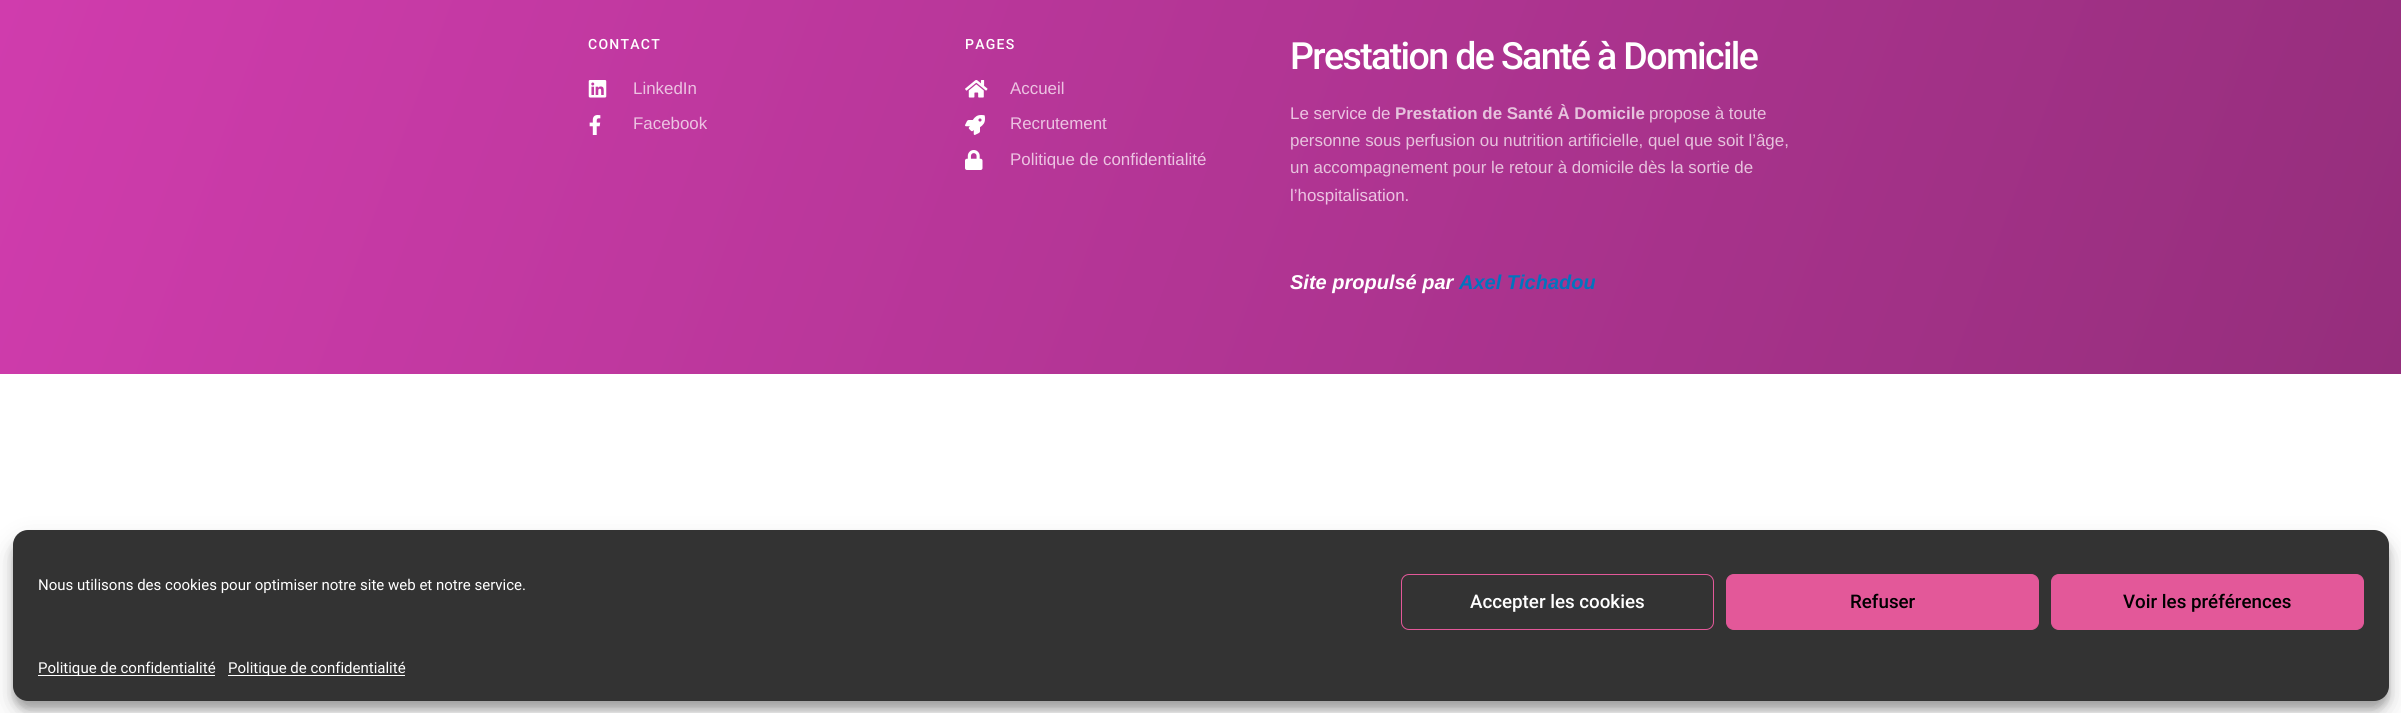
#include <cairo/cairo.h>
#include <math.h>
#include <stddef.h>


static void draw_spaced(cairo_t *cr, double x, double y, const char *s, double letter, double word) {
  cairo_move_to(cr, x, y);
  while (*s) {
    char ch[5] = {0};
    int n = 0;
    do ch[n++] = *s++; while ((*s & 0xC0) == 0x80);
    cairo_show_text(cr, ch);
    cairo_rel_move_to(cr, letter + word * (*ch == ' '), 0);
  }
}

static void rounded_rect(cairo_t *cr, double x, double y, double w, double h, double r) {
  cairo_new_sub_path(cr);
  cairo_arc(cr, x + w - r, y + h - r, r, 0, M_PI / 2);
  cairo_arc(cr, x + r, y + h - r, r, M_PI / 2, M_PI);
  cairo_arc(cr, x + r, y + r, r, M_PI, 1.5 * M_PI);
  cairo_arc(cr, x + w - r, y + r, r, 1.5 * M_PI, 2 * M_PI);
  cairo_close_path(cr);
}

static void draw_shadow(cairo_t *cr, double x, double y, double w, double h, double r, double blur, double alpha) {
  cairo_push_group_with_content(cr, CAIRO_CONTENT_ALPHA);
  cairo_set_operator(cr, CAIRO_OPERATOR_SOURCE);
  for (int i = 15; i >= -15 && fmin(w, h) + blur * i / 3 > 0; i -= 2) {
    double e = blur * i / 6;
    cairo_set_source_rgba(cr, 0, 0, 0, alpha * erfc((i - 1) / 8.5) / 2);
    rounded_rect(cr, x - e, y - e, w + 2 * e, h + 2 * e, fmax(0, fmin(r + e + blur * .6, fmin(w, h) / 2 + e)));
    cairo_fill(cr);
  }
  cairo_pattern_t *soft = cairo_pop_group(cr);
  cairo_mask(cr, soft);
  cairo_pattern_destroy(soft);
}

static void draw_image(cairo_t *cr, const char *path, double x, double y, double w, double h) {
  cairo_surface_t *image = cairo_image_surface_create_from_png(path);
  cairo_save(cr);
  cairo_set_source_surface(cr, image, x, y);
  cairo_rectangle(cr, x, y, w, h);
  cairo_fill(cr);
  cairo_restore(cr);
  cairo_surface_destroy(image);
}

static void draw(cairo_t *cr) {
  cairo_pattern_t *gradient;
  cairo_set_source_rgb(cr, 1, 1, 1);
  cairo_paint(cr);
  gradient = cairo_pattern_create_linear(80, -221, 2321, 595);
  cairo_pattern_add_color_stop_rgba(gradient, 0, 208 / 255.0, 60 / 255.0, 173 / 255.0, 1);
  cairo_pattern_add_color_stop_rgba(gradient, 1, 149 / 255.0, 46 / 255.0, 124 / 255.0, 1);
  cairo_set_source(cr, gradient);
  cairo_pattern_destroy(gradient);
  cairo_rectangle(cr, 0, 0, 2401, 374);
  cairo_fill(cr);
  draw_image(cr, "images/1.png", 588, 80, 19, 18);
  draw_image(cr, "images/2.png", 589, 115, 12, 20);
  draw_image(cr, "images/3.png", 965, 80, 23, 18);
  draw_image(cr, "images/4.png", 965, 115, 20, 20);
  draw_image(cr, "images/5.png", 965, 150, 18, 20);
  cairo_set_source_rgb(cr, 0, 0, 0);
  draw_shadow(cr, 13, 538, 2376, 171, 15, 4, 0.23);
  draw_shadow(cr, 13, 543, 2376, 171, 15, 12.5, 0.19);
  cairo_set_source_rgb(cr, 51 / 255.0, 51 / 255.0, 51 / 255.0);
  rounded_rect(cr, 13, 530, 2376, 171, 15);
  cairo_fill(cr);
  rounded_rect(cr, 1401.5, 574.5, 312, 55, 7.5);
  cairo_set_source_rgb(cr, 227 / 255.0, 88 / 255.0, 153 / 255.0);
  cairo_set_line_width(cr, 1);
  cairo_stroke(cr);
  rounded_rect(cr, 1726.5, 574.5, 312, 55, 7.5);
  cairo_fill_preserve(cr);
  cairo_stroke(cr);
  rounded_rect(cr, 2051.5, 574.5, 312, 55, 7.5);
  cairo_fill_preserve(cr);
  cairo_stroke(cr);
  cairo_set_source_rgb(cr, 1, 1, 1);
  cairo_rectangle(cr, 38, 675, 177, 1);
  cairo_fill(cr);
  cairo_rectangle(cr, 228, 675, 177, 1);
  cairo_fill(cr);
  cairo_select_font_face(cr, "Roboto Medium", CAIRO_FONT_SLANT_NORMAL, CAIRO_FONT_WEIGHT_NORMAL);
  cairo_set_font_size(cr, 14);
  draw_spaced(cr, 588, 49, "CONTACT", 1.25, 0);
  cairo_select_font_face(cr, "Liberation Sans", CAIRO_FONT_SLANT_NORMAL, CAIRO_FONT_WEIGHT_NORMAL);
  cairo_set_font_size(cr, 16.9);
  cairo_set_source_rgb(cr, 236 / 255.0, 195 / 255.0, 226 / 255.0);
  cairo_move_to(cr, 633, 94);
  cairo_show_text(cr, "LinkedIn");
  cairo_move_to(cr, 633, 129);
  cairo_show_text(cr, "Facebook");
  cairo_select_font_face(cr, "Roboto Medium", CAIRO_FONT_SLANT_NORMAL, CAIRO_FONT_WEIGHT_NORMAL);
  cairo_set_font_size(cr, 14);
  cairo_set_source_rgb(cr, 1, 1, 1);
  draw_spaced(cr, 965, 49, "PAGES", 1.25, 0);
  cairo_select_font_face(cr, "Liberation Sans", CAIRO_FONT_SLANT_NORMAL, CAIRO_FONT_WEIGHT_NORMAL);
  cairo_set_font_size(cr, 16.9);
  cairo_set_source_rgb(cr, 236 / 255.0, 195 / 255.0, 226 / 255.0);
  cairo_move_to(cr, 1010, 94);
  cairo_show_text(cr, "Accueil");
  cairo_move_to(cr, 1010, 129);
  cairo_show_text(cr, "Recrutement");
  cairo_move_to(cr, 1010, 165);
  cairo_show_text(cr, "Politique de confidentialité");
  cairo_select_font_face(cr, "Roboto Medium", CAIRO_FONT_SLANT_NORMAL, CAIRO_FONT_WEIGHT_NORMAL);
  cairo_set_font_size(cr, 37.5);
  cairo_set_source_rgb(cr, 1, 1, 1);
  draw_spaced(cr, 1290, 69, "Prestation de Santé à Domicile", -1.6, 0);
  cairo_select_font_face(cr, "Liberation Sans", CAIRO_FONT_SLANT_NORMAL, CAIRO_FONT_WEIGHT_NORMAL);
  cairo_set_font_size(cr, 16.9);
  cairo_set_source_rgb(cr, 236 / 255.0, 195 / 255.0, 226 / 255.0);
  cairo_move_to(cr, 1290, 119);
  cairo_show_text(cr, "Le service de");
  cairo_select_font_face(cr, "Liberation Sans", CAIRO_FONT_SLANT_NORMAL, CAIRO_FONT_WEIGHT_BOLD);
  cairo_set_source_rgb(cr, 230 / 255.0, 194 / 255.0, 221 / 255.0);
  cairo_move_to(cr, 1395, 119);
  cairo_show_text(cr, "Prestation de Santé À Domicile");
  cairo_select_font_face(cr, "Liberation Sans", CAIRO_FONT_SLANT_NORMAL, CAIRO_FONT_WEIGHT_NORMAL);
  cairo_move_to(cr, 1649, 119);
  cairo_show_text(cr, "propose à toute");
  cairo_move_to(cr, 1290, 146);
  cairo_show_text(cr, "personne sous perfusion ou nutrition artificielle, quel que soit l’âge,");
  cairo_move_to(cr, 1290, 173);
  cairo_show_text(cr, "un accompagnement pour le retour à domicile dès la sortie de");
  cairo_set_source_rgb(cr, 236 / 255.0, 195 / 255.0, 226 / 255.0);
  cairo_move_to(cr, 1290, 201);
  cairo_show_text(cr, "l’hospitalisation.");
  cairo_select_font_face(cr, "Liberation Sans", CAIRO_FONT_SLANT_ITALIC, CAIRO_FONT_WEIGHT_BOLD);
  cairo_set_font_size(cr, 20);
  cairo_set_source_rgb(cr, 1, 1, 1);
  cairo_move_to(cr, 1290, 289);
  cairo_show_text(cr, "Site propulsé par");
  cairo_set_source_rgb(cr, 2 / 255.0, 116 / 255.0, 190 / 255.0);
  cairo_move_to(cr, 1459, 289);
  cairo_show_text(cr, "Axel Tichadou");
  cairo_select_font_face(cr, "Roboto", CAIRO_FONT_SLANT_NORMAL, CAIRO_FONT_WEIGHT_NORMAL);
  cairo_set_font_size(cr, 15);
  cairo_set_source_rgb(cr, 1, 1, 1);
  cairo_move_to(cr, 38, 590);
  cairo_show_text(cr, "Nous utilisons des cookies pour optimiser notre site web et notre service.");
  cairo_select_font_face(cr, "Roboto Medium", CAIRO_FONT_SLANT_NORMAL, CAIRO_FONT_WEIGHT_NORMAL);
  cairo_set_font_size(cr, 18.75);
  cairo_move_to(cr, 1470, 608);
  cairo_show_text(cr, "Accepter les cookies");
  cairo_set_source_rgb(cr, 0, 0, 0);
  cairo_move_to(cr, 1850, 608);
  cairo_show_text(cr, "Refuser");
  cairo_move_to(cr, 2123, 608);
  cairo_show_text(cr, "Voir les préférences");
  cairo_select_font_face(cr, "Roboto", CAIRO_FONT_SLANT_NORMAL, CAIRO_FONT_WEIGHT_NORMAL);
  cairo_set_font_size(cr, 15);
  cairo_set_source_rgb(cr, 1, 1, 1);
  cairo_move_to(cr, 38, 673);
  cairo_show_text(cr, "Politique de confidentialité");
  cairo_move_to(cr, 228, 673);
  cairo_show_text(cr, "Politique de confidentialité");
}

int main(void) {
  cairo_surface_t *surface = cairo_image_surface_create(CAIRO_FORMAT_RGB24, 2401, 713);
  cairo_t *cr = cairo_create(surface);
  cairo_font_options_t *options = cairo_font_options_create();
  cairo_font_options_set_hint_metrics(options, CAIRO_HINT_METRICS_OFF);
  cairo_font_options_set_hint_style(options, CAIRO_HINT_STYLE_NONE);
  cairo_set_font_options(cr, options);
  cairo_set_miter_limit(cr, 4);
  draw(cr);
  cairo_surface_write_to_png(surface, "out.png");
  cairo_font_options_destroy(options);
  cairo_destroy(cr);
  cairo_surface_destroy(surface);
  return 0;
}
